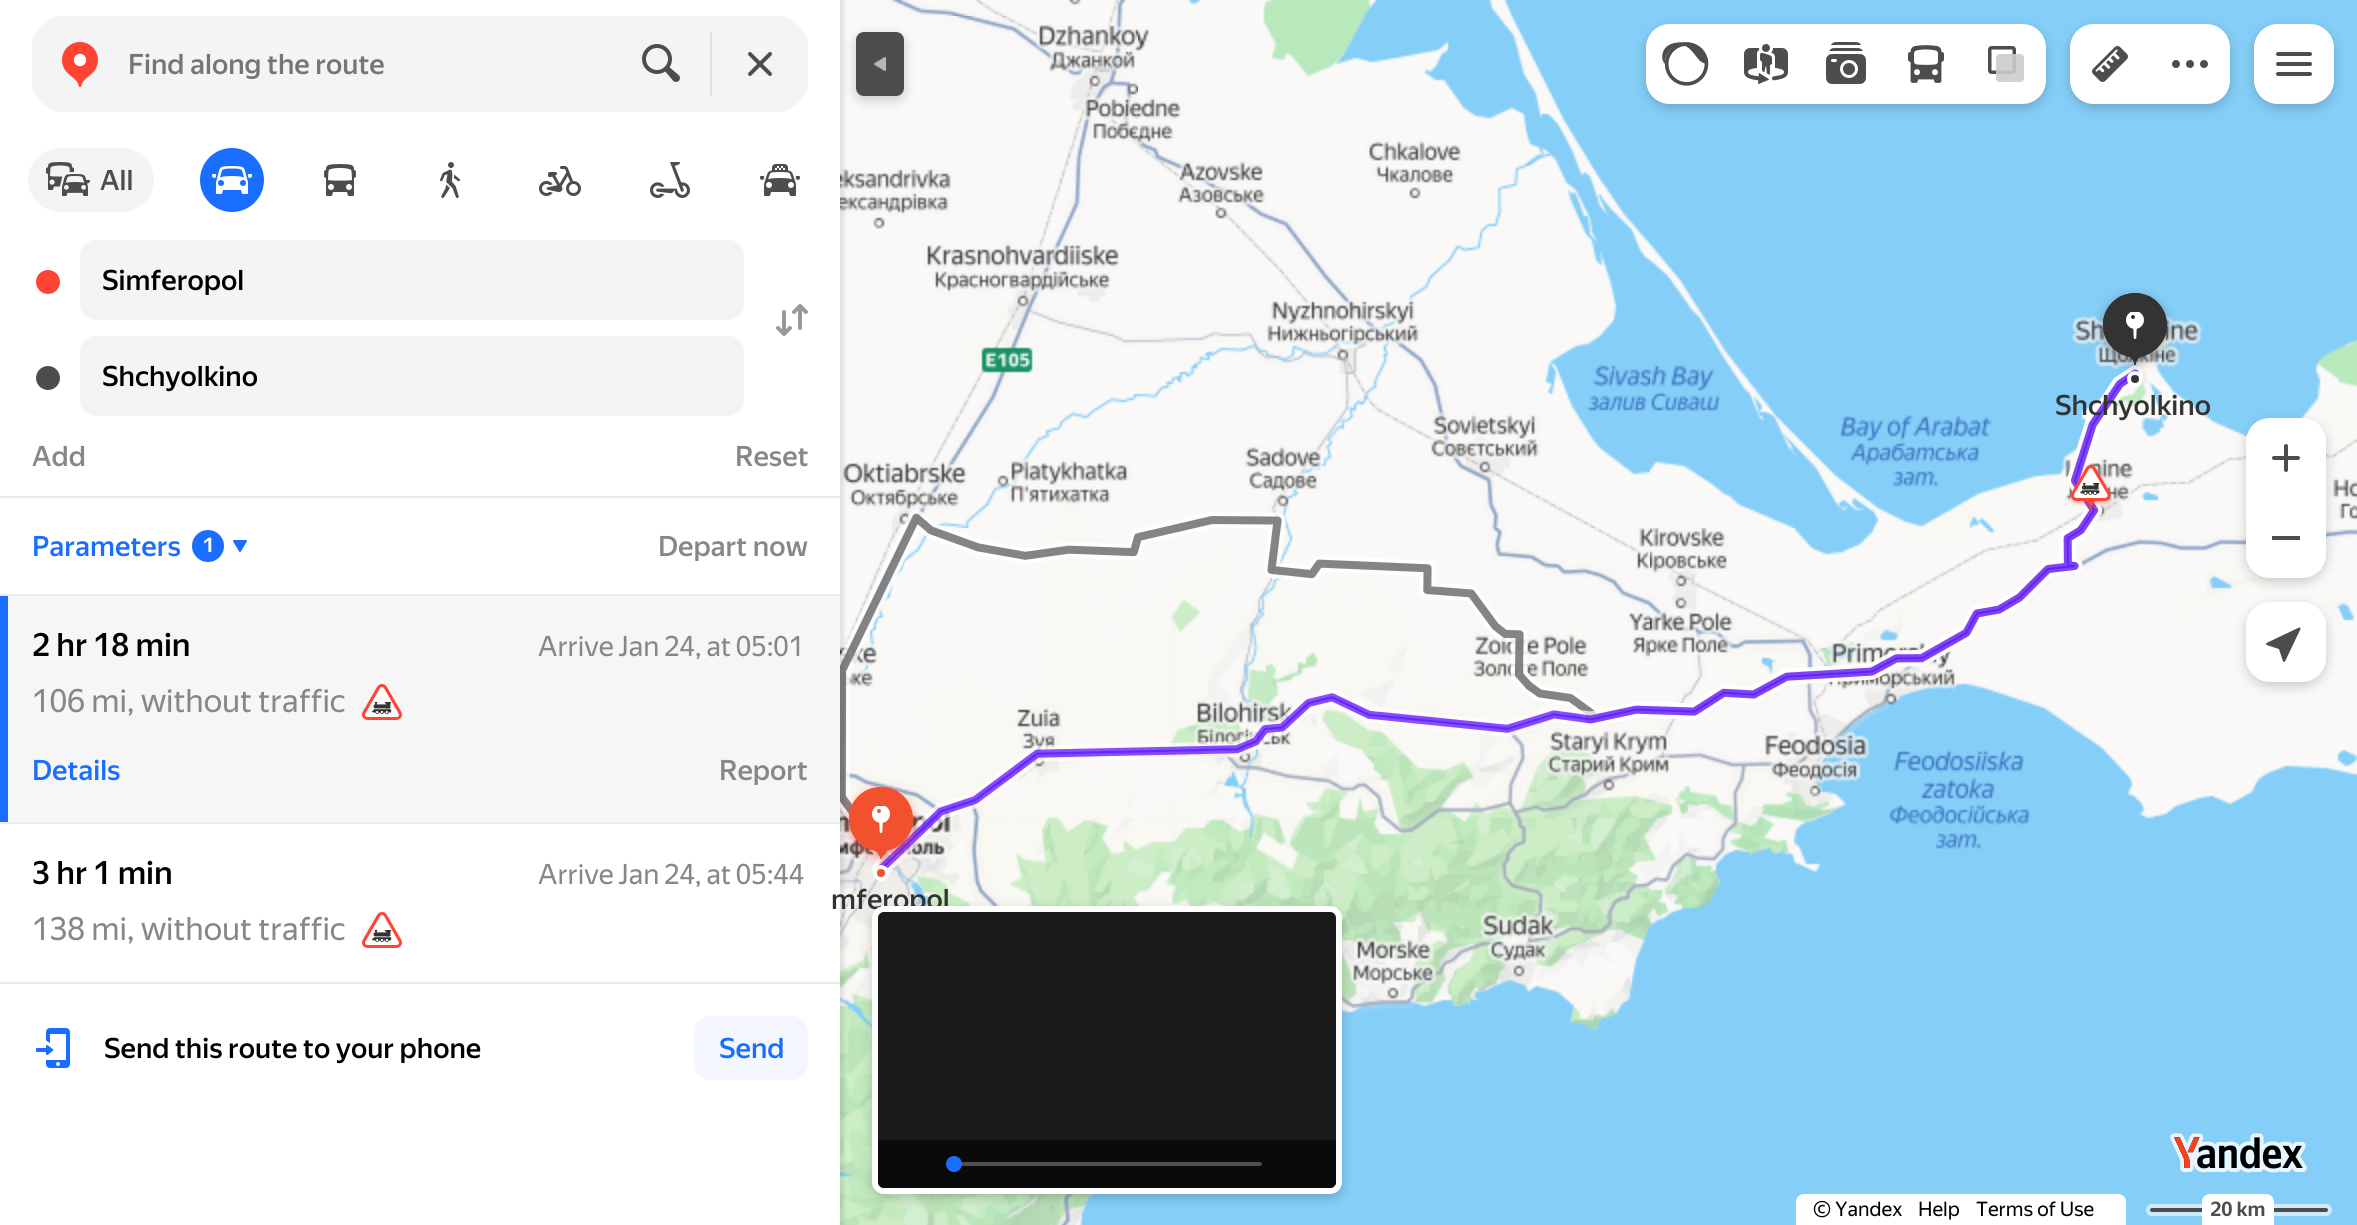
#include <cairo/cairo.h>
#include <math.h>
#include <stddef.h>


static void draw_spaced(cairo_t *cr, double x, double y, const char *s, double letter, double word) {
  cairo_move_to(cr, x, y);
  while (*s) {
    char ch[5] = {0};
    int n = 0;
    do ch[n++] = *s++; while ((*s & 0xC0) == 0x80);
    cairo_show_text(cr, ch);
    cairo_rel_move_to(cr, letter + word * (*ch == ' '), 0);
  }
}

static void rounded_rect(cairo_t *cr, double x, double y, double w, double h, double r) {
  cairo_new_sub_path(cr);
  cairo_arc(cr, x + w - r, y + h - r, r, 0, M_PI / 2);
  cairo_arc(cr, x + r, y + h - r, r, M_PI / 2, M_PI);
  cairo_arc(cr, x + r, y + r, r, M_PI, 1.5 * M_PI);
  cairo_arc(cr, x + w - r, y + r, r, 1.5 * M_PI, 2 * M_PI);
  cairo_close_path(cr);
}

static void draw_shadow(cairo_t *cr, double x, double y, double w, double h, double r, double blur, double alpha) {
  cairo_push_group_with_content(cr, CAIRO_CONTENT_ALPHA);
  cairo_set_operator(cr, CAIRO_OPERATOR_SOURCE);
  for (int i = 15; i >= -15 && fmin(w, h) + blur * i / 3 > 0; i -= 2) {
    double e = blur * i / 6;
    cairo_set_source_rgba(cr, 0, 0, 0, alpha * erfc((i - 1) / 8.5) / 2);
    rounded_rect(cr, x - e, y - e, w + 2 * e, h + 2 * e, fmax(0, fmin(r + e + blur * .6, fmin(w, h) / 2 + e)));
    cairo_fill(cr);
  }
  cairo_pattern_t *soft = cairo_pop_group(cr);
  cairo_mask(cr, soft);
  cairo_pattern_destroy(soft);
}

static void draw_image(cairo_t *cr, const char *path, double x, double y, double w, double h) {
  cairo_surface_t *image = cairo_image_surface_create_from_png(path);
  cairo_save(cr);
  cairo_set_source_surface(cr, image, x, y);
  cairo_rectangle(cr, x, y, w, h);
  cairo_fill(cr);
  cairo_restore(cr);
  cairo_surface_destroy(image);
}

static void draw(cairo_t *cr) {
  cairo_set_source_rgb(cr, 1, 1, 1);
  cairo_paint(cr);
  draw_image(cr, "images/1.png", 840, 0, 1517, 529);
  draw_image(cr, "images/31.png", 840, 16, 298, 512);
  draw_image(cr, "images/35.png", 840, 528, 298, 512);
  draw_image(cr, "images/39.png", 840, 1040, 298, 185);
  draw_image(cr, "images/32.png", 1138, 16, 512, 512);
  draw_image(cr, "images/33.png", 1650, 16, 512, 512);
  draw_image(cr, "images/36.png", 1138, 528, 512, 512);
  draw_image(cr, "images/37.png", 1650, 528, 512, 512);
  draw_image(cr, "images/41.png", 840, 365, 1304, 510);
  draw_image(cr, "images/45.png", 840, 782, 82, 99);
  cairo_set_source_rgb(cr, 0, 0, 0);
  draw_shadow(cr, 4, 0, 840, 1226, 0, 2, 0.1);
  draw_shadow(cr, 856, 36, 48, 64, 8, 6, 0.2);
  cairo_set_source_rgb(cr, 1, 1, 1);
  cairo_rectangle(cr, 1, 0, 839, 1225);
  cairo_fill(cr);
  cairo_set_source_rgb(cr, 244 / 255.0, 244 / 255.0, 244 / 255.0);
  rounded_rect(cr, 32, 16, 776, 96, 32);
  cairo_fill(cr);
  draw_image(cr, "images/2.png", 62, 42, 36, 45);
  draw_image(cr, "images/3.png", 642, 44, 38, 38);
  cairo_set_source_rgb(cr, 224 / 255.0, 224 / 255.0, 224 / 255.0);
  cairo_rectangle(cr, 710, 32, 2, 64);
  cairo_fill(cr);
  draw_image(cr, "images/4.png", 748, 52, 24, 24);
  draw_image(cr, "images/30.png", 1150, 0, 500, 16);
  cairo_set_source_rgb(cr, 132 / 255.0, 206 / 255.0, 248 / 255.0);
  cairo_rectangle(cr, 1650, 0, 707, 16);
  cairo_fill(cr);
  cairo_set_source_rgb(cr, 0, 0, 0);
  draw_shadow(cr, 1646, 28, 400, 80, 24, 6, 0.2);
  cairo_set_source_rgb(cr, 1, 1, 1);
  cairo_new_path(cr);
  cairo_move_to(cr, 1670, 24);
  cairo_line_to(cr, 1726, 24);
  cairo_line_to(cr, 1726, 104);
  cairo_line_to(cr, 1670, 104);
  cairo_curve_to(cr, 1656.5, 104, 1646, 93.5, 1646, 80);
  cairo_line_to(cr, 1646, 48);
  cairo_curve_to(cr, 1646, 34.5, 1656.5, 24, 1670, 24);
  cairo_close_path(cr);
  cairo_fill(cr);
  draw_image(cr, "images/5.png", 1662, 42, 47, 44);
  cairo_rectangle(cr, 1726, 24, 240, 80);
  cairo_fill(cr);
  draw_image(cr, "images/6.png", 1744, 44, 44, 40);
  cairo_new_path(cr);
  cairo_move_to(cr, 1966, 24);
  cairo_line_to(cr, 2022, 24);
  cairo_curve_to(cr, 2035.5, 24, 2046, 34.5, 2046, 48);
  cairo_line_to(cr, 2046, 80);
  cairo_curve_to(cr, 2046, 93.5, 2035.5, 104, 2022, 104);
  cairo_line_to(cr, 1966, 104);
  cairo_close_path(cr);
  cairo_fill(cr);
  draw_image(cr, "images/7.png", 1988, 46, 36, 36);
  draw_image(cr, "images/8.png", 1826, 42, 40, 42);
  draw_image(cr, "images/9.png", 1908, 45, 36, 38);
  draw_image(cr, "images/34.png", 2162, 16, 195, 505);
  cairo_set_source_rgb(cr, 0, 0, 0);
  draw_shadow(cr, 2070, 28, 160, 80, 24, 6, 0.2);
  cairo_set_source_rgb(cr, 1, 1, 1);
  cairo_new_path(cr);
  cairo_move_to(cr, 2094, 24);
  cairo_line_to(cr, 2150, 24);
  cairo_line_to(cr, 2150, 104);
  cairo_line_to(cr, 2094, 104);
  cairo_curve_to(cr, 2080.5, 104, 2070, 93.5, 2070, 80);
  cairo_line_to(cr, 2070, 48);
  cairo_curve_to(cr, 2070, 34.5, 2080.5, 24, 2094, 24);
  cairo_close_path(cr);
  cairo_fill(cr);
  draw_image(cr, "images/10.png", 2092, 46, 36, 36);
  cairo_new_path(cr);
  cairo_move_to(cr, 2150, 24);
  cairo_line_to(cr, 2206, 24);
  cairo_curve_to(cr, 2219.5, 24, 2230, 34.5, 2230, 48);
  cairo_line_to(cr, 2230, 80);
  cairo_curve_to(cr, 2230, 93.5, 2219.5, 104, 2206, 104);
  cairo_line_to(cr, 2150, 104);
  cairo_close_path(cr);
  cairo_fill(cr);
  draw_image(cr, "images/11.png", 2172, 60, 36, 8);
  cairo_set_source_rgb(cr, 0, 0, 0);
  draw_shadow(cr, 2254, 28, 80, 80, 24, 6, 0.2);
  cairo_set_source_rgb(cr, 1, 1, 1);
  rounded_rect(cr, 2254, 24, 80, 80, 24);
  cairo_fill(cr);
  draw_image(cr, "images/12.png", 2276, 52, 36, 24);
  draw_image(cr, "images/38.png", 2162, 529, 195, 511);
  cairo_set_source_rgb(cr, 0, 0, 0);
  draw_shadow(cr, 2246, 422, 80, 160, 24, 6, 0.2);
  cairo_set_source_rgb(cr, 1, 1, 1);
  cairo_new_path(cr);
  cairo_move_to(cr, 2270, 418);
  cairo_line_to(cr, 2302, 418);
  cairo_curve_to(cr, 2315.5, 418, 2326, 428.5, 2326, 442);
  cairo_line_to(cr, 2326, 498);
  cairo_line_to(cr, 2246, 498);
  cairo_line_to(cr, 2246, 442);
  cairo_curve_to(cr, 2246, 428.5, 2256.5, 418, 2270, 418);
  cairo_close_path(cr);
  cairo_fill(cr);
  draw_image(cr, "images/13.png", 2272, 444, 28, 28);
  cairo_new_path(cr);
  cairo_move_to(cr, 2246, 498);
  cairo_line_to(cr, 2326, 498);
  cairo_line_to(cr, 2326, 554);
  cairo_curve_to(cr, 2326, 567.5, 2315.5, 578, 2302, 578);
  cairo_line_to(cr, 2270, 578);
  cairo_curve_to(cr, 2256.5, 578, 2246, 567.5, 2246, 554);
  cairo_close_path(cr);
  cairo_fill(cr);
  cairo_set_source_rgb(cr, 77 / 255.0, 77 / 255.0, 77 / 255.0);
  cairo_rectangle(cr, 2272, 536, 28, 4);
  cairo_fill(cr);
  cairo_set_source_rgb(cr, 0, 0, 0);
  draw_shadow(cr, 2246, 606, 80, 80, 24, 6, 0.2);
  cairo_set_source_rgb(cr, 1, 1, 1);
  rounded_rect(cr, 2246, 602, 80, 80, 24);
  cairo_fill(cr);
  draw_image(cr, "images/14.png", 2266, 627, 35, 35);
  cairo_set_source_rgb(cr, 77 / 255.0, 77 / 255.0, 77 / 255.0);
  rounded_rect(cr, 856, 32, 48, 64, 8);
  cairo_fill(cr);
  draw_image(cr, "images/15.png", 874, 57, 12, 14);
  cairo_set_source_rgb(cr, 244 / 255.0, 244 / 255.0, 244 / 255.0);
  rounded_rect(cr, 28, 148, 126, 64, 32);
  cairo_fill(cr);
  draw_image(cr, "images/16.png", 46, 162, 44, 34);
  cairo_set_source_rgb(cr, 25 / 255.0, 109 / 255.0, 1);
  cairo_arc(cr, 232, 180, 32, 0, 2 * M_PI);
  cairo_fill(cr);
  draw_image(cr, "images/17.png", 212, 166, 40, 28);
  draw_image(cr, "images/18.png", 324, 164, 32, 32);
  draw_image(cr, "images/19.png", 440, 162, 20, 36);
  draw_image(cr, "images/20.png", 539, 166, 42, 30);
  draw_image(cr, "images/21.png", 650, 162, 40, 36);
  draw_image(cr, "images/22.png", 760, 164, 40, 32);
  cairo_set_source_rgb(cr, 1, 68 / 255.0, 51 / 255.0);
  cairo_arc(cr, 48, 282, 12, 0, 2 * M_PI);
  cairo_fill(cr);
  cairo_set_source_rgb(cr, 244 / 255.0, 244 / 255.0, 244 / 255.0);
  rounded_rect(cr, 80, 240, 664, 80, 16);
  cairo_fill(cr);
  cairo_set_source_rgb(cr, 77 / 255.0, 77 / 255.0, 77 / 255.0);
  cairo_arc(cr, 48, 378, 12, 0, 2 * M_PI);
  cairo_fill(cr);
  cairo_set_source_rgb(cr, 244 / 255.0, 244 / 255.0, 244 / 255.0);
  rounded_rect(cr, 80, 336, 664, 80, 16);
  cairo_fill(cr);
  draw_image(cr, "images/23.png", 776, 304, 32, 32);
  cairo_set_source_rgb(cr, 235 / 255.0, 235 / 255.0, 235 / 255.0);
  cairo_rectangle(cr, 0, 496, 840, 2);
  cairo_fill(cr);
  cairo_set_source_rgb(cr, 25 / 255.0, 109 / 255.0, 1);
  cairo_arc(cr, 208, 546, 16, 0, 2 * M_PI);
  cairo_fill(cr);
  draw_image(cr, "images/24.png", 233, 540, 14, 12);
  cairo_set_source_rgb(cr, 246 / 255.0, 246 / 255.0, 246 / 255.0);
  cairo_rectangle(cr, 8, 596, 832, 226);
  cairo_fill(cr);
  cairo_set_source_rgb(cr, 25 / 255.0, 109 / 255.0, 1);
  cairo_rectangle(cr, 0, 594, 8, 228);
  cairo_fill(cr);
  cairo_set_source_rgb(cr, 235 / 255.0, 235 / 255.0, 235 / 255.0);
  cairo_rectangle(cr, 0, 594, 840, 2);
  cairo_fill(cr);
  draw_image(cr, "images/25.png", 362, 684, 40, 36);
  cairo_rectangle(cr, 0, 822, 840, 2);
  cairo_fill(cr);
  draw_image(cr, "images/26.png", 362, 912, 40, 36);
  cairo_rectangle(cr, 0, 982, 840, 2);
  cairo_fill(cr);
  draw_image(cr, "images/27.png", 36, 1028, 34, 40);
  cairo_set_source_rgb(cr, 243 / 255.0, 246 / 255.0, 252 / 255.0);
  rounded_rect(cr, 694, 1016, 114, 64, 16);
  cairo_fill(cr);
  cairo_set_source_rgb(cr, 132 / 255.0, 206 / 255.0, 248 / 255.0);
  cairo_rectangle(cr, 1650, 1040, 707, 185);
  cairo_fill(cr);
  draw_image(cr, "images/28.png", 2170, 1133, 137, 40);
  cairo_set_source_rgb(cr, 1, 1, 1);
  cairo_new_path(cr);
  cairo_move_to(cr, 1804, 1194);
  cairo_line_to(cr, 2118, 1194);
  cairo_curve_to(cr, 2122.5, 1194, 2126, 1197.5, 2126, 1202);
  cairo_line_to(cr, 2126, 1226);
  cairo_line_to(cr, 1796, 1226);
  cairo_line_to(cr, 1796, 1202);
  cairo_curve_to(cr, 1796, 1197.5, 1799.5, 1194, 1804, 1194);
  cairo_close_path(cr);
  cairo_fill(cr);
  cairo_set_source_rgb(cr, 206 / 255.0, 235 / 255.0, 252 / 255.0);
  rounded_rect(cr, 2146, 1204, 186, 12, 6);
  cairo_fill(cr);
  cairo_set_source_rgb(cr, 77 / 255.0, 77 / 255.0, 77 / 255.0);
  rounded_rect(cr, 2150, 1208, 178, 4, 2);
  cairo_fill(cr);
  cairo_set_source_rgb(cr, 1, 1, 1);
  cairo_new_path(cr);
  cairo_move_to(cr, 2210, 1194);
  cairo_line_to(cr, 2266, 1194);
  cairo_curve_to(cr, 2270.5, 1194, 2274, 1197.5, 2274, 1202);
  cairo_line_to(cr, 2274, 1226);
  cairo_line_to(cr, 2202, 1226);
  cairo_line_to(cr, 2202, 1202);
  cairo_curve_to(cr, 2202, 1197.5, 2205.5, 1194, 2210, 1194);
  cairo_close_path(cr);
  cairo_fill(cr);
  draw_image(cr, "images/29.png", 862, 0, 265, 16);
  draw_image(cr, "images/40.png", 1138, 1040, 512, 185);
  draw_image(cr, "images/42.png", 2095, 288, 81, 99);
  draw_image(cr, "images/43.png", 2126, 312, 18, 27);
  draw_image(cr, "images/44.png", 2068, 464, 46, 49);
  draw_image(cr, "images/46.png", 872, 806, 18, 27);
  cairo_set_source_rgb(cr, 0, 0, 0);
  draw_shadow(cr, 872, 910, 470, 288, 12, 6, 0.2);
  cairo_select_font_face(cr, "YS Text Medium", CAIRO_FONT_SLANT_NORMAL, CAIRO_FONT_WEIGHT_NORMAL);
  cairo_set_font_size(cr, 28);
  cairo_set_source_rgb(cr, 117 / 255.0, 117 / 255.0, 117 / 255.0);
  cairo_move_to(cr, 128, 74);
  cairo_show_text(cr, "Find along the route");
  cairo_set_source_rgb(cr, 77 / 255.0, 77 / 255.0, 77 / 255.0);
  cairo_move_to(cr, 100, 190);
  cairo_show_text(cr, "All");
  cairo_set_source_rgb(cr, 0, 0, 0);
  cairo_move_to(cr, 102, 290);
  cairo_show_text(cr, "Simferopol");
  cairo_move_to(cr, 102, 386);
  cairo_show_text(cr, "Shchyolkino");
  cairo_set_source_rgb(cr, 135 / 255.0, 135 / 255.0, 135 / 255.0);
  cairo_move_to(cr, 32, 466);
  cairo_show_text(cr, "Add");
  cairo_move_to(cr, 735, 466);
  cairo_show_text(cr, "Reset");
  cairo_set_source_rgb(cr, 25 / 255.0, 109 / 255.0, 1);
  cairo_move_to(cr, 32, 556);
  cairo_show_text(cr, "Parameters");
  cairo_select_font_face(cr, "YS Text", CAIRO_FONT_SLANT_NORMAL, CAIRO_FONT_WEIGHT_BOLD);
  cairo_set_font_size(cr, 20);
  cairo_set_source_rgb(cr, 1, 1, 1);
  cairo_move_to(cr, 203, 552);
  cairo_show_text(cr, "1");
  cairo_select_font_face(cr, "YS Text Medium", CAIRO_FONT_SLANT_NORMAL, CAIRO_FONT_WEIGHT_NORMAL);
  cairo_set_font_size(cr, 28);
  cairo_set_source_rgb(cr, 135 / 255.0, 135 / 255.0, 135 / 255.0);
  cairo_move_to(cr, 658, 556);
  cairo_show_text(cr, "Depart now");
  cairo_set_font_size(cr, 32);
  cairo_set_source_rgb(cr, 0, 0, 0);
  cairo_move_to(cr, 32, 656);
  cairo_show_text(cr, "2 hr 18 min");
  cairo_select_font_face(cr, "YS Text", CAIRO_FONT_SLANT_NORMAL, CAIRO_FONT_WEIGHT_NORMAL);
  cairo_set_font_size(cr, 28);
  cairo_set_source_rgb(cr, 135 / 255.0, 135 / 255.0, 135 / 255.0);
  draw_spaced(cr, 538, 656, "Arrive Jan 24, at 05:01", 0, -1);
  cairo_set_font_size(cr, 32);
  cairo_move_to(cr, 32, 712);
  cairo_show_text(cr, "106 mi,");
  cairo_select_font_face(cr, "Noto Sans", CAIRO_FONT_SLANT_NORMAL, CAIRO_FONT_WEIGHT_NORMAL);
  cairo_move_to(cr, 141, 712);
  cairo_show_text(cr, "w");
  cairo_select_font_face(cr, "YS Text", CAIRO_FONT_SLANT_NORMAL, CAIRO_FONT_WEIGHT_NORMAL);
  cairo_move_to(cr, 166, 712);
  cairo_show_text(cr, "ithout traffic");
  cairo_select_font_face(cr, "YS Text Medium", CAIRO_FONT_SLANT_NORMAL, CAIRO_FONT_WEIGHT_NORMAL);
  cairo_set_font_size(cr, 28);
  cairo_set_source_rgb(cr, 25 / 255.0, 109 / 255.0, 1);
  cairo_move_to(cr, 32, 780);
  cairo_show_text(cr, "Details");
  cairo_set_source_rgb(cr, 135 / 255.0, 135 / 255.0, 135 / 255.0);
  cairo_move_to(cr, 719, 780);
  cairo_show_text(cr, "Report");
  cairo_set_font_size(cr, 32);
  cairo_set_source_rgb(cr, 0, 0, 0);
  cairo_move_to(cr, 32, 884);
  cairo_show_text(cr, "3 hr 1 min");
  cairo_select_font_face(cr, "YS Text", CAIRO_FONT_SLANT_NORMAL, CAIRO_FONT_WEIGHT_NORMAL);
  cairo_set_font_size(cr, 28);
  cairo_set_source_rgb(cr, 135 / 255.0, 135 / 255.0, 135 / 255.0);
  draw_spaced(cr, 538, 884, "Arrive Jan 24, at 05:44", 0, -1);
  cairo_set_font_size(cr, 32);
  cairo_move_to(cr, 32, 940);
  cairo_show_text(cr, "138 mi,");
  cairo_select_font_face(cr, "Noto Sans", CAIRO_FONT_SLANT_NORMAL, CAIRO_FONT_WEIGHT_NORMAL);
  cairo_move_to(cr, 141, 940);
  cairo_show_text(cr, "w");
  cairo_select_font_face(cr, "YS Text", CAIRO_FONT_SLANT_NORMAL, CAIRO_FONT_WEIGHT_NORMAL);
  cairo_move_to(cr, 166, 940);
  cairo_show_text(cr, "ithout traffic");
  cairo_select_font_face(cr, "YS Text Medium", CAIRO_FONT_SLANT_NORMAL, CAIRO_FONT_WEIGHT_NORMAL);
  cairo_set_font_size(cr, 28);
  cairo_set_source_rgb(cr, 0, 0, 0);
  cairo_move_to(cr, 104, 1058);
  cairo_show_text(cr, "Send this route to your phone");
  cairo_set_source_rgb(cr, 25 / 255.0, 109 / 255.0, 1);
  cairo_move_to(cr, 719, 1058);
  cairo_show_text(cr, "Send");
  cairo_select_font_face(cr, "YS Text", CAIRO_FONT_SLANT_NORMAL, CAIRO_FONT_WEIGHT_NORMAL);
  cairo_set_font_size(cr, 20);
  cairo_set_source_rgb(cr, 0, 0, 0);
  cairo_move_to(cr, 1813, 1216);
  cairo_show_text(cr, "© Yandex");
  cairo_move_to(cr, 1918, 1216);
  cairo_show_text(cr, "Help");
  cairo_move_to(cr, 1976, 1216);
  cairo_show_text(cr, "Terms of Use");
  cairo_select_font_face(cr, "YS Text", CAIRO_FONT_SLANT_NORMAL, CAIRO_FONT_WEIGHT_BOLD);
  cairo_set_source_rgb(cr, 77 / 255.0, 77 / 255.0, 77 / 255.0);
  cairo_move_to(cr, 2210, 1216);
  cairo_show_text(cr, "20 km");
  cairo_select_font_face(cr, "YS Text Medium", CAIRO_FONT_SLANT_NORMAL, CAIRO_FONT_WEIGHT_NORMAL);
  cairo_set_font_size(cr, 28);
  cairo_set_source_rgb(cr, 51 / 255.0, 51 / 255.0, 51 / 255.0);
  cairo_move_to(cr, 2055, 415);
  cairo_show_text(cr, "Shchyolkino");
  cairo_move_to(cr, 831, 909);
  cairo_show_text(cr, "mferopol");
  rounded_rect(cr, 875, 909, 464, 282, 9);
  cairo_set_source_rgb(cr, 1, 1, 1);
  cairo_set_line_width(cr, 6);
  cairo_stroke(cr);
  cairo_set_source_rgb(cr, 26 / 255.0, 26 / 255.0, 26 / 255.0);
  rounded_rect(cr, 878, 912, 458, 276, 6);
  cairo_fill(cr);
  cairo_set_source_rgba(cr, 0, 0, 0, 0.6);
  cairo_new_path(cr);
  cairo_move_to(cr, 878, 1140);
  cairo_line_to(cr, 1336, 1140);
  cairo_line_to(cr, 1336, 1182);
  cairo_curve_to(cr, 1336, 1185.5, 1333.5, 1188, 1330, 1188);
  cairo_line_to(cr, 884, 1188);
  cairo_curve_to(cr, 880.5, 1188, 878, 1185.5, 878, 1182);
  cairo_close_path(cr);
  cairo_fill(cr);
  cairo_set_source_rgb(cr, 78 / 255.0, 78 / 255.0, 78 / 255.0);
  rounded_rect(cr, 952, 1162, 310, 4, 2);
  cairo_fill(cr);
  cairo_set_source_rgb(cr, 0, 0, 0);
  draw_shadow(cr, 946, 1158, 16, 16, 8, 2, 0.2);
  cairo_set_source_rgb(cr, 25 / 255.0, 109 / 255.0, 1);
  cairo_arc(cr, 954, 1164, 8, 0, 2 * M_PI);
  cairo_fill(cr);
}

int main(void) {
  cairo_surface_t *surface = cairo_image_surface_create(CAIRO_FORMAT_RGB24, 2357, 1225);
  cairo_t *cr = cairo_create(surface);
  cairo_font_options_t *options = cairo_font_options_create();
  cairo_font_options_set_hint_metrics(options, CAIRO_HINT_METRICS_OFF);
  cairo_font_options_set_hint_style(options, CAIRO_HINT_STYLE_NONE);
  cairo_set_font_options(cr, options);
  cairo_set_miter_limit(cr, 4);
  draw(cr);
  cairo_surface_write_to_png(surface, "out.png");
  cairo_font_options_destroy(options);
  cairo_destroy(cr);
  cairo_surface_destroy(surface);
  return 0;
}
